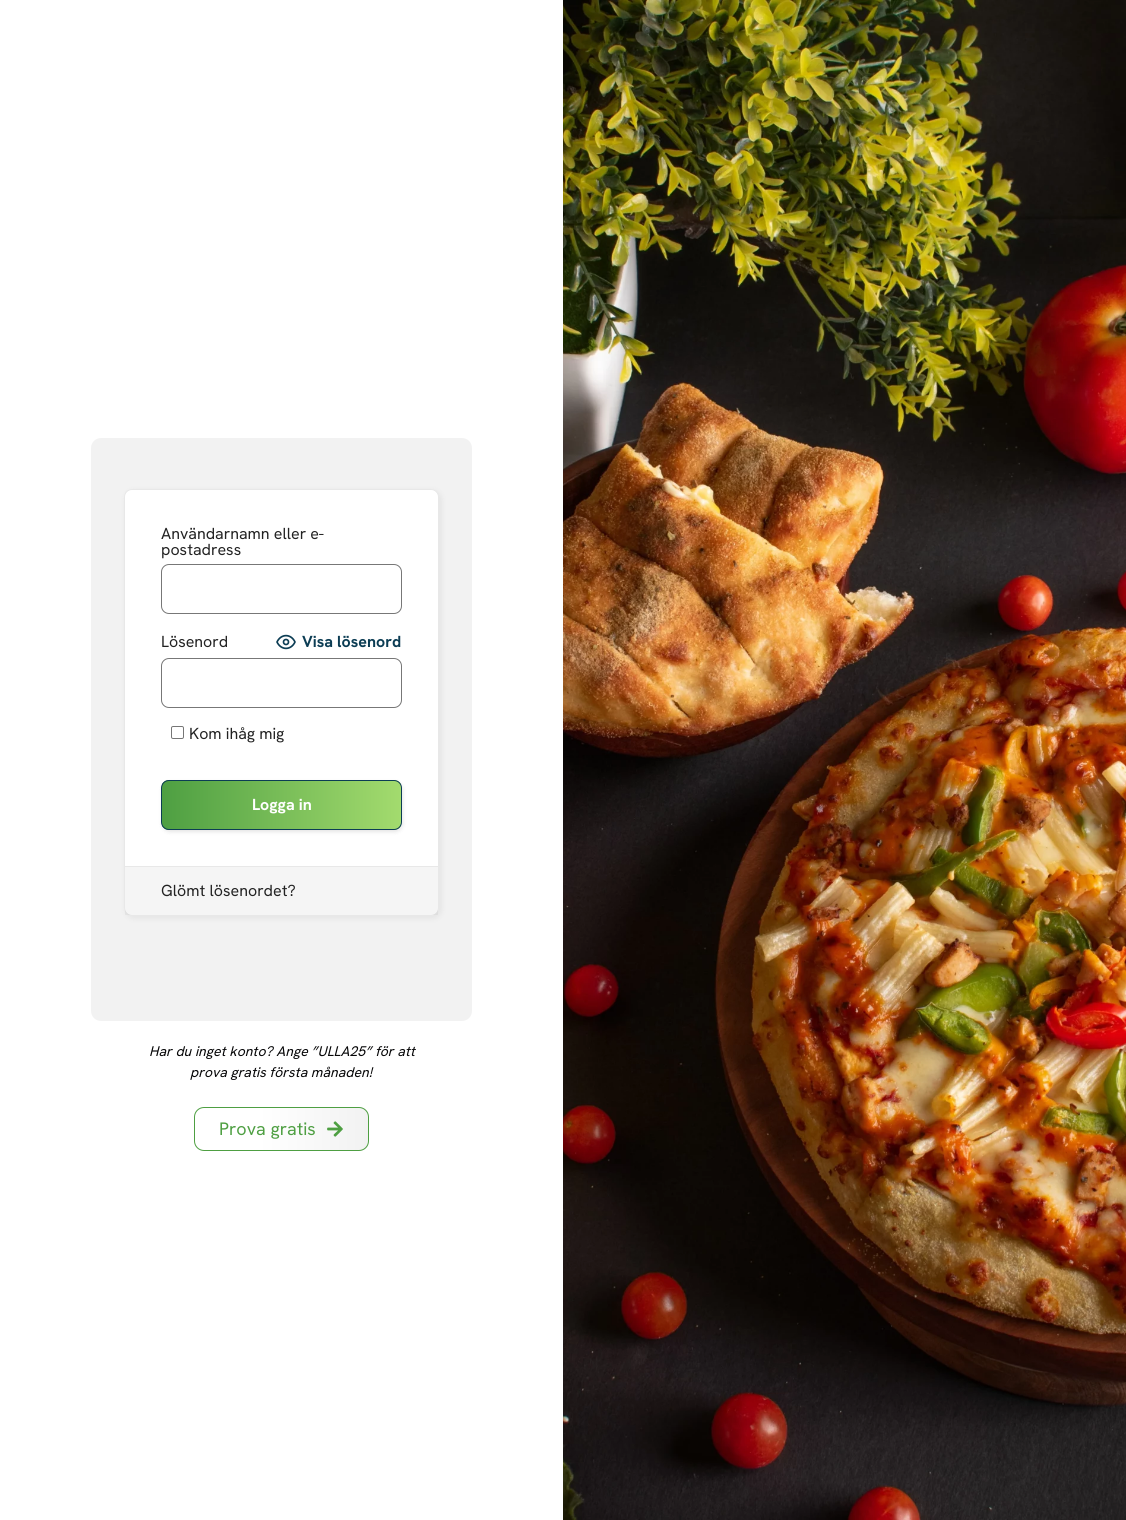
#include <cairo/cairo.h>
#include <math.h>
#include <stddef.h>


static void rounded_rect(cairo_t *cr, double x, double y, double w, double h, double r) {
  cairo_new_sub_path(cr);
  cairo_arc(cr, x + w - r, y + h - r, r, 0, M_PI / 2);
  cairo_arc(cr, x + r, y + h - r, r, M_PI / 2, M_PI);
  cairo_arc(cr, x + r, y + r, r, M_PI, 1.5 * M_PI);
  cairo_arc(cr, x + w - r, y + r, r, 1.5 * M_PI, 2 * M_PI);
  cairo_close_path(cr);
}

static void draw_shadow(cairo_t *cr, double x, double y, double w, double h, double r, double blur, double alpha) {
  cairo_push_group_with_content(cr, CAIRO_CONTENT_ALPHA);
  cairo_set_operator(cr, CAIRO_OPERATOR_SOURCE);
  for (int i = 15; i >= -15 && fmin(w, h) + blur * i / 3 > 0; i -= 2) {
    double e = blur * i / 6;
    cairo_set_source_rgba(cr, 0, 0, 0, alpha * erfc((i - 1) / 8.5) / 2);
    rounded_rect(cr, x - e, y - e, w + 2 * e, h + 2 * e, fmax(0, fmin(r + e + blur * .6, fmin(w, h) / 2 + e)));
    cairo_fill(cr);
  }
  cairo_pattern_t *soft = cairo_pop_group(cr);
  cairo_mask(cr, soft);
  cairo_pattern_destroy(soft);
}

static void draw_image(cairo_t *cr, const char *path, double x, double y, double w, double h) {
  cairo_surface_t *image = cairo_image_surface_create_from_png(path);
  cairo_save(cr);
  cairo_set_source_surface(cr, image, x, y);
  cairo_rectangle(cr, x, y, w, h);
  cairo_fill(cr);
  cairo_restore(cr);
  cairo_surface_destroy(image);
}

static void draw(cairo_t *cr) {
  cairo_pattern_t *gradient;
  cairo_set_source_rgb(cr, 1, 1, 1);
  cairo_paint(cr);
  cairo_set_source_rgb(cr, 242 / 255.0, 242 / 255.0, 242 / 255.0);
  rounded_rect(cr, 91, 438, 381, 583, 10);
  cairo_fill(cr);
  cairo_set_source_rgb(cr, 0, 0, 0);
  draw_shadow(cr, 126, 491, 315, 427, 8, 3.5, 0.07);
  cairo_set_source_rgb(cr, 1, 1, 1);
  rounded_rect(cr, 124.5, 489.5, 314, 426, 7.5);
  cairo_fill_preserve(cr);
  cairo_set_source_rgb(cr, 232 / 255.0, 232 / 255.0, 232 / 255.0);
  cairo_set_line_width(cr, 1);
  cairo_stroke(cr);
  rounded_rect(cr, 161.5, 564.5, 240, 49, 7.5);
  cairo_set_source_rgb(cr, 119 / 255.0, 119 / 255.0, 119 / 255.0);
  cairo_stroke(cr);
  cairo_new_path(cr);
  cairo_move_to(cr, 277, 642);
  cairo_curve_to(cr, 281, 633.5, 291, 633.5, 295, 642);
  cairo_curve_to(cr, 291, 650.5, 281, 650.5, 277, 642);
  cairo_close_path(cr);
  cairo_set_source_rgb(cr, 12 / 255.0, 61 / 255.0, 84 / 255.0);
  cairo_set_line_width(cr, 1.7);
  cairo_set_line_cap(cr, CAIRO_LINE_CAP_ROUND);
  cairo_set_line_join(cr, CAIRO_LINE_JOIN_ROUND);
  cairo_stroke(cr);
  cairo_arc(cr, 286, 642, 2.5, 0, 2 * M_PI);
  cairo_set_line_cap(cr, CAIRO_LINE_CAP_BUTT);
  cairo_set_line_join(cr, CAIRO_LINE_JOIN_MITER);
  cairo_stroke(cr);
  rounded_rect(cr, 161.5, 658.5, 240, 49, 7.5);
  cairo_set_source_rgb(cr, 119 / 255.0, 119 / 255.0, 119 / 255.0);
  cairo_set_line_width(cr, 1);
  cairo_stroke(cr);
  rounded_rect(cr, 171.5, 726.5, 12, 12, 1.5);
  cairo_set_source_rgb(cr, 118 / 255.0, 118 / 255.0, 118 / 255.0);
  cairo_stroke(cr);
  cairo_set_source_rgb(cr, 0, 0, 0);
  draw_shadow(cr, 162, 782, 241, 50, 8, 2, 0.1);
  cairo_save(cr);
  rounded_rect(cr, 161, 780, 241, 50, 8);
  cairo_clip(cr);
  gradient = cairo_pattern_create_linear(162, 805, 401, 805);
  cairo_pattern_add_color_stop_rgba(gradient, 0, 78 / 255.0, 159 / 255.0, 66 / 255.0, 1);
  cairo_pattern_add_color_stop_rgba(gradient, 1, 163 / 255.0, 219 / 255.0, 110 / 255.0, 1);
  cairo_set_source(cr, gradient);
  cairo_pattern_destroy(gradient);
  cairo_rectangle(cr, 162, 780, 239, 50);
  cairo_fill(cr);
  cairo_restore(cr);
  rounded_rect(cr, 161.5, 780.5, 240, 49, 7.5);
  cairo_set_source_rgb(cr, 12 / 255.0, 61 / 255.0, 84 / 255.0);
  cairo_stroke(cr);
  cairo_set_source_rgba(cr, 0, 0, 0, 0.04);
  cairo_rectangle(cr, 125, 867, 313, 48);
  cairo_fill(cr);
  cairo_set_source_rgb(cr, 232 / 255.0, 232 / 255.0, 232 / 255.0);
  cairo_rectangle(cr, 125, 866, 313, 1);
  cairo_fill(cr);
  cairo_save(cr);
  rounded_rect(cr, 194, 1107, 175, 44, 10);
  cairo_clip(cr);
  gradient = cairo_pattern_create_linear(195, 1129, 368, 1129);
  cairo_pattern_add_color_stop_rgba(gradient, 0.37, 1, 1, 1, 1);
  cairo_pattern_add_color_stop_rgba(gradient, 1, 242 / 255.0, 242 / 255.0, 242 / 255.0, 1);
  cairo_set_source(cr, gradient);
  cairo_pattern_destroy(gradient);
  cairo_rectangle(cr, 195, 1107, 173, 44);
  cairo_fill(cr);
  cairo_restore(cr);
  rounded_rect(cr, 194.5, 1107.5, 174, 43, 9.5);
  cairo_set_source_rgb(cr, 78 / 255.0, 159 / 255.0, 66 / 255.0);
  cairo_stroke(cr);
  draw_image(cr, "images/1.png", 327, 1121, 16, 16);
  draw_image(cr, "images/2.png", 563, 0, 563, 1520);
  cairo_select_font_face(cr, "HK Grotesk", CAIRO_FONT_SLANT_NORMAL, CAIRO_FONT_WEIGHT_NORMAL);
  cairo_set_font_size(cr, 16);
  cairo_set_source_rgb(cr, 34 / 255.0, 34 / 255.0, 34 / 255.0);
  cairo_move_to(cr, 161, 539);
  cairo_show_text(cr, "Användarnamn eller e-");
  cairo_move_to(cr, 161, 555);
  cairo_show_text(cr, "postadress");
  cairo_move_to(cr, 161, 647);
  cairo_show_text(cr, "Lösenord");
  cairo_select_font_face(cr, "HK Grotesk", CAIRO_FONT_SLANT_NORMAL, CAIRO_FONT_WEIGHT_BOLD);
  cairo_set_source_rgb(cr, 12 / 255.0, 61 / 255.0, 84 / 255.0);
  cairo_move_to(cr, 302, 647);
  cairo_show_text(cr, "Visa lösenord");
  cairo_select_font_face(cr, "HK Grotesk", CAIRO_FONT_SLANT_NORMAL, CAIRO_FONT_WEIGHT_NORMAL);
  cairo_set_source_rgb(cr, 34 / 255.0, 34 / 255.0, 34 / 255.0);
  cairo_move_to(cr, 189, 739);
  cairo_show_text(cr, "Kom ihåg mig");
  cairo_select_font_face(cr, "HK Grotesk", CAIRO_FONT_SLANT_NORMAL, CAIRO_FONT_WEIGHT_BOLD);
  cairo_set_source_rgb(cr, 1, 1, 1);
  cairo_move_to(cr, 252, 810);
  cairo_show_text(cr, "Logga in");
  cairo_select_font_face(cr, "HK Grotesk", CAIRO_FONT_SLANT_NORMAL, CAIRO_FONT_WEIGHT_NORMAL);
  cairo_set_source_rgb(cr, 34 / 255.0, 34 / 255.0, 34 / 255.0);
  cairo_move_to(cr, 161, 896);
  cairo_show_text(cr, "Glömt lösenordet?");
  cairo_select_font_face(cr, "HK Grotesk", CAIRO_FONT_SLANT_ITALIC, CAIRO_FONT_WEIGHT_NORMAL);
  cairo_set_font_size(cr, 14);
  cairo_set_source_rgb(cr, 6 / 255.0, 6 / 255.0, 7 / 255.0);
  cairo_move_to(cr, 149, 1056);
  cairo_show_text(cr, "Har du inget konto? Ange ”ULLA25” för att");
  cairo_move_to(cr, 190, 1077);
  cairo_show_text(cr, "prova gratis första månaden!");
  cairo_select_font_face(cr, "HK Grotesk", CAIRO_FONT_SLANT_NORMAL, CAIRO_FONT_WEIGHT_NORMAL);
  cairo_set_font_size(cr, 18);
  cairo_set_source_rgb(cr, 78 / 255.0, 159 / 255.0, 66 / 255.0);
  cairo_move_to(cr, 219, 1135);
  cairo_show_text(cr, "Prova gratis");
}

int main(void) {
  cairo_surface_t *surface = cairo_image_surface_create(CAIRO_FORMAT_RGB24, 1126, 1520);
  cairo_t *cr = cairo_create(surface);
  cairo_font_options_t *options = cairo_font_options_create();
  cairo_font_options_set_hint_metrics(options, CAIRO_HINT_METRICS_OFF);
  cairo_font_options_set_hint_style(options, CAIRO_HINT_STYLE_NONE);
  cairo_set_font_options(cr, options);
  cairo_set_miter_limit(cr, 4);
  draw(cr);
  cairo_surface_write_to_png(surface, "out.png");
  cairo_font_options_destroy(options);
  cairo_destroy(cr);
  cairo_surface_destroy(surface);
  return 0;
}
